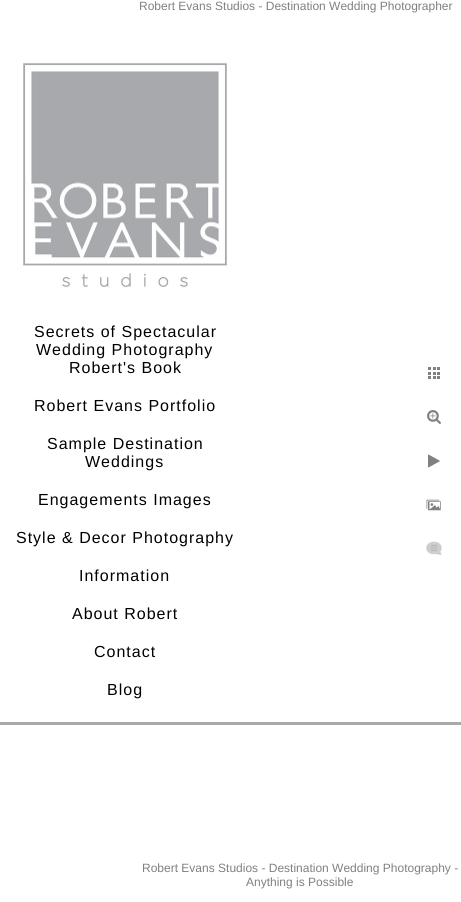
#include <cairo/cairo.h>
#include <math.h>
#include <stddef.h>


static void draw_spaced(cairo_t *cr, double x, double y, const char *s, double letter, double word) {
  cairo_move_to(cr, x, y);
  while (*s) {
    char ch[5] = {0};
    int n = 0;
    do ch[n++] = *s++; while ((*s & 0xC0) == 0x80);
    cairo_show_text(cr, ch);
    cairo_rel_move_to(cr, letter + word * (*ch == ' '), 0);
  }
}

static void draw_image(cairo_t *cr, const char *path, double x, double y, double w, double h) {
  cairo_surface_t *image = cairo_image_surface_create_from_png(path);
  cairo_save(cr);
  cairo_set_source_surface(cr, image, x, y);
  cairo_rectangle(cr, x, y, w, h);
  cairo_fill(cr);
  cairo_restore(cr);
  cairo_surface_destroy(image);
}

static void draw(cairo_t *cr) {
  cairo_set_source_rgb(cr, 1, 1, 1);
  cairo_paint(cr);
  draw_image(cr, "images/1.png", 23, 63, 204, 225);
  draw_image(cr, "images/2.png", 428, 367, 12, 12);
  draw_image(cr, "images/3.png", 427, 410, 14, 14);
  draw_image(cr, "images/4.png", 428, 454, 12, 14);
  draw_image(cr, "images/5.png", 426, 499, 15, 12);
  draw_image(cr, "images/6.png", 426, 541, 16, 14);
  cairo_set_source_rgb(cr, 169 / 255.0, 169 / 255.0, 169 / 255.0);
  cairo_rectangle(cr, 0, 722, 461, 3);
  cairo_fill(cr);
  cairo_select_font_face(cr, "Liberation Sans", CAIRO_FONT_SLANT_NORMAL, CAIRO_FONT_WEIGHT_NORMAL);
  cairo_set_font_size(cr, 12);
  cairo_set_source_rgb(cr, 128 / 255.0, 128 / 255.0, 128 / 255.0);
  cairo_move_to(cr, 139, 10);
  cairo_show_text(cr, "Robert Evans Studios - Destination Wedding Photographer");
  cairo_set_font_size(cr, 16);
  cairo_set_source_rgb(cr, 0, 0, 0);
  draw_spaced(cr, 34, 337, "Secrets of Spectacular", 1, 0);
  draw_spaced(cr, 36, 355, "Wedding Photography", 1, 0);
  draw_spaced(cr, 69, 373, "Robert's Book", 1, 0);
  draw_spaced(cr, 34, 411, "Robert Evans Portfolio", 1, 0);
  draw_spaced(cr, 47, 449, "Sample Destination", 1, 0);
  draw_spaced(cr, 85, 467, "Weddings", 1, 0);
  draw_spaced(cr, 38, 505, "Engagements Images", 1, 0);
  draw_spaced(cr, 16, 543, "Style & Decor Photography", 1, 0);
  draw_spaced(cr, 79, 581, "Information", 1, 0);
  draw_spaced(cr, 72, 619, "About Robert", 1, 0);
  draw_spaced(cr, 94, 657, "Contact", 1, 0);
  draw_spaced(cr, 107, 695, "Blog", 1, 0);
  cairo_set_font_size(cr, 12);
  cairo_set_source_rgb(cr, 128 / 255.0, 128 / 255.0, 128 / 255.0);
  cairo_move_to(cr, 142, 872);
  cairo_show_text(cr, "Robert Evans Studios - Destination Wedding Photography -");
  cairo_move_to(cr, 246, 886);
  cairo_show_text(cr, "Anything is Possible");
}

int main(void) {
  cairo_surface_t *surface = cairo_image_surface_create(CAIRO_FORMAT_RGB24, 461, 902);
  cairo_t *cr = cairo_create(surface);
  cairo_font_options_t *options = cairo_font_options_create();
  cairo_font_options_set_hint_metrics(options, CAIRO_HINT_METRICS_OFF);
  cairo_font_options_set_hint_style(options, CAIRO_HINT_STYLE_NONE);
  cairo_set_font_options(cr, options);
  cairo_set_miter_limit(cr, 4);
  draw(cr);
  cairo_surface_write_to_png(surface, "out.png");
  cairo_font_options_destroy(options);
  cairo_destroy(cr);
  cairo_surface_destroy(surface);
  return 0;
}
